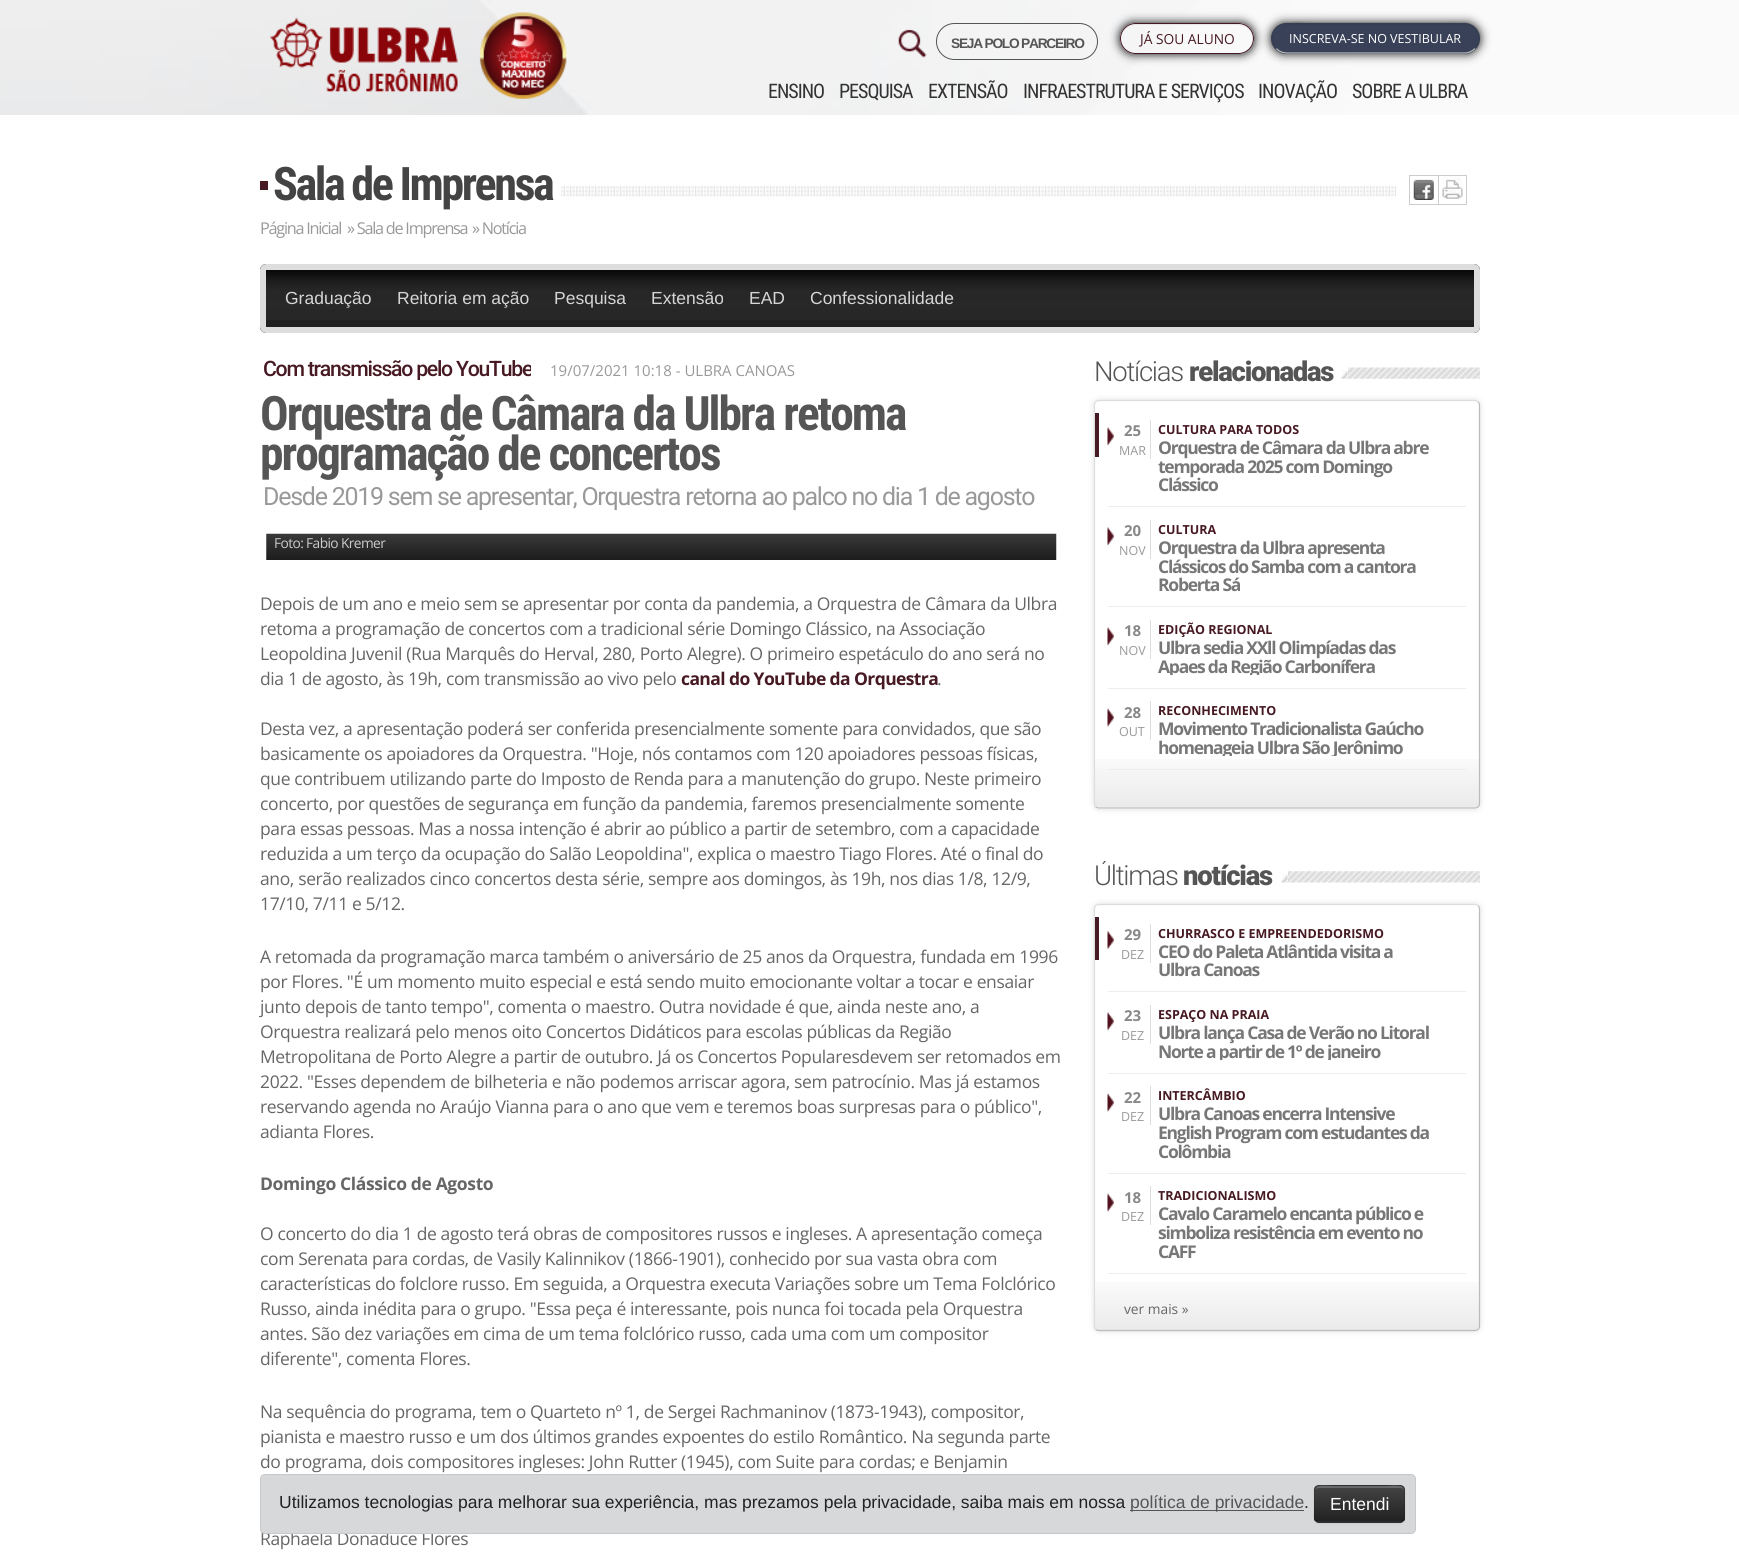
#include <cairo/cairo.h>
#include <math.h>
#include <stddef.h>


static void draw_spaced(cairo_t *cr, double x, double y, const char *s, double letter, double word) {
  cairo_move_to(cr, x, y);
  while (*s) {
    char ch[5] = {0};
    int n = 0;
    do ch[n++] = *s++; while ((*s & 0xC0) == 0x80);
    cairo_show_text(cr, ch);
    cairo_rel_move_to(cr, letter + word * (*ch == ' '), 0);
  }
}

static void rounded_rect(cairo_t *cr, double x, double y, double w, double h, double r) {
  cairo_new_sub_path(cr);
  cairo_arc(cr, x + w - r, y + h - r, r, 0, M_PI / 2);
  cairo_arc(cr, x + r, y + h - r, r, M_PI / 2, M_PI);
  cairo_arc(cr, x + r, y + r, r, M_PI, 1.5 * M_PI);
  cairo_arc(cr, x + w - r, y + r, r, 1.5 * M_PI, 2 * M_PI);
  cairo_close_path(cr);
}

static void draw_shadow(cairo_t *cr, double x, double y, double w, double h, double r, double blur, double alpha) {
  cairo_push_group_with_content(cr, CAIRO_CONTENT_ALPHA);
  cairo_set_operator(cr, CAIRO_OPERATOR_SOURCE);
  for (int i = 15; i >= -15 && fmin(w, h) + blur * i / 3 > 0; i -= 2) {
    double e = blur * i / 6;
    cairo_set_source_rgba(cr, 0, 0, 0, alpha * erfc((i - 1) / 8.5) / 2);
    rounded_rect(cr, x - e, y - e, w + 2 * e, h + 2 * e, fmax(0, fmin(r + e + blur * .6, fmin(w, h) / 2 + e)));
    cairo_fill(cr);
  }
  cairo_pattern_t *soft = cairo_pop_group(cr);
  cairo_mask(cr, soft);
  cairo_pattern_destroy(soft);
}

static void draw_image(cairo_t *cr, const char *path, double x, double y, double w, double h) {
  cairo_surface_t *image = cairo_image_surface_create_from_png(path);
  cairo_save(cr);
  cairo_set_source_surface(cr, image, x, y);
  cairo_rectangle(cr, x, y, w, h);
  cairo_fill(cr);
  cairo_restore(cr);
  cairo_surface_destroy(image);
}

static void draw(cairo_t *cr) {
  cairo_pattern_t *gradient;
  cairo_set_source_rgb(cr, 1, 1, 1);
  cairo_paint(cr);
  draw_image(cr, "images/1.png", 0, 0, 1739, 115);
  draw_image(cr, "images/2.png", 270, 12, 297, 87);
  draw_image(cr, "images/3.png", 898, 29, 29, 29);
  rounded_rect(cr, 936.5, 23.5, 161, 36, 18);
  cairo_set_source_rgb(cr, 85 / 255.0, 85 / 255.0, 85 / 255.0);
  cairo_set_line_width(cr, 1);
  cairo_stroke(cr);
  cairo_save(cr);
  cairo_set_fill_rule(cr, CAIRO_FILL_RULE_EVEN_ODD);
  cairo_new_path(cr);
  cairo_move_to(cr, 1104, 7);
  cairo_line_to(cr, 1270, 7);
  cairo_line_to(cr, 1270, 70);
  cairo_line_to(cr, 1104, 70);
  cairo_close_path(cr);
  cairo_move_to(cr, 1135.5, 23);
  cairo_line_to(cr, 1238.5, 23);
  cairo_curve_to(cr, 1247, 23, 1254, 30, 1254, 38.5);
  cairo_curve_to(cr, 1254, 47, 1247, 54, 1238.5, 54);
  cairo_line_to(cr, 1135.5, 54);
  cairo_curve_to(cr, 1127, 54, 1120, 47, 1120, 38.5);
  cairo_curve_to(cr, 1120, 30, 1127, 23, 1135.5, 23);
  cairo_close_path(cr);
  cairo_clip(cr);
  cairo_set_source_rgb(cr, 0, 0, 0);
  draw_shadow(cr, 1120, 23, 134, 31, 15.5, 5, 1);
  cairo_restore(cr);
  cairo_set_source_rgba(cr, 0, 0, 0, 0.07);
  cairo_new_path(cr);
  cairo_move_to(cr, 1136, 25);
  cairo_line_to(cr, 1238, 25);
  cairo_curve_to(cr, 1246, 25, 1252, 31, 1252, 39);
  cairo_curve_to(cr, 1252, 43, 1251, 47, 1248, 49);
  cairo_curve_to(cr, 1251, 47, 1253, 43, 1253, 38);
  cairo_curve_to(cr, 1253, 30, 1247, 24, 1238, 24);
  cairo_line_to(cr, 1136, 24);
  cairo_curve_to(cr, 1127, 24, 1121, 30, 1121, 38);
  cairo_line_to(cr, 1121, 39);
  cairo_curve_to(cr, 1121, 31, 1128, 25, 1136, 25);
  cairo_close_path(cr);
  cairo_fill(cr);
  rounded_rect(cr, 1120.5, 23.5, 133, 30, 15);
  cairo_set_source_rgb(cr, 71 / 255.0, 25 / 255.0, 35 / 255.0);
  cairo_stroke(cr);
  cairo_set_source_rgb(cr, 0, 0, 0);
  draw_shadow(cr, 1271, 23, 209, 31, 15.5, 5, 0.9);
  cairo_set_source_rgb(cr, 56 / 255.0, 65 / 255.0, 87 / 255.0);
  rounded_rect(cr, 1271, 23, 209, 31, 15.5);
  cairo_fill(cr);
  cairo_set_source_rgb(cr, 54 / 255.0, 62 / 255.0, 82 / 255.0);
  cairo_new_path(cr);
  cairo_move_to(cr, 1287, 25);
  cairo_line_to(cr, 1464, 25);
  cairo_curve_to(cr, 1472, 25, 1479, 31, 1479, 39);
  cairo_curve_to(cr, 1479, 17, 1445, 24, 1435, 24);
  cairo_line_to(cr, 1317, 24);
  cairo_curve_to(cr, 1311, 24, 1285, 19, 1277, 29);
  cairo_curve_to(cr, 1279, 26, 1283, 25, 1287, 25);
  cairo_close_path(cr);
  cairo_fill(cr);
  cairo_new_path(cr);
  cairo_move_to(cr, 1475, 48.5);
  cairo_curve_to(cr, 1472, 51.5, 1468.5, 53, 1464.5, 53);
  cairo_line_to(cr, 1287, 53);
  cairo_curve_to(cr, 1283, 53, 1279, 51.5, 1276.5, 48.5);
  cairo_set_source_rgb(cr, 186 / 255.0, 186 / 255.0, 186 / 255.0);
  cairo_set_line_width(cr, 1.2);
  cairo_stroke(cr);
  cairo_new_path(cr);
  cairo_move_to(cr, 1276.5, 48.5);
  cairo_curve_to(cr, 1271, 43.5, 1270.5, 34.5, 1275.5, 28.5);
  cairo_curve_to(cr, 1284, 18, 1309.5, 23, 1316.5, 23);
  cairo_line_to(cr, 1435, 23);
  cairo_curve_to(cr, 1442, 23, 1467.5, 18, 1476, 28.5);
  cairo_curve_to(cr, 1481, 34.5, 1480.5, 43.5, 1475, 48.5);
  cairo_set_source_rgba(cr, 25 / 255.0, 25 / 255.0, 25 / 255.0, 0.1);
  cairo_stroke(cr);
  draw_image(cr, "images/4.png", 561, 186, 835, 11);
  cairo_set_source_rgb(cr, 71 / 255.0, 25 / 255.0, 35 / 255.0);
  cairo_rectangle(cr, 260, 181, 8, 9);
  cairo_fill(cr);
  cairo_set_source_rgb(cr, 204 / 255.0, 204 / 255.0, 204 / 255.0);
  cairo_rectangle(cr, 1466, 175, 1, 30);
  cairo_fill(cr);
  cairo_rectangle(cr, 1409, 175, 57, 1);
  cairo_fill(cr);
  cairo_rectangle(cr, 1409, 204, 57, 1);
  cairo_fill(cr);
  cairo_rectangle(cr, 1409, 175, 1, 30);
  cairo_fill(cr);
  draw_image(cr, "images/5.png", 1413, 179, 21, 21);
  cairo_rectangle(cr, 1438, 175, 1, 30);
  cairo_fill(cr);
  draw_image(cr, "images/6.png", 1442, 176, 21, 23);
  cairo_set_source_rgb(cr, 32 / 255.0, 32 / 255.0, 32 / 255.0);
  rounded_rect(cr, 260, 264, 1220, 69, 6);
  cairo_fill(cr);
  draw_image(cr, "images/7.png", 266, 270, 1208, 50);
  rounded_rect(cr, 263, 267, 1214, 63, 3);
  cairo_set_source_rgb(cr, 221 / 255.0, 221 / 255.0, 221 / 255.0);
  cairo_set_line_width(cr, 6);
  cairo_stroke(cr);
  draw_image(cr, "images/8.png", 266, 533, 791, 27);
  draw_image(cr, "images/9.png", 1093, 367, 387, 12);
  cairo_set_source_rgb(cr, 1, 1, 1);
  cairo_rectangle(cr, 1094, 367, 254, 12);
  cairo_fill(cr);
  draw_image(cr, "images/10.png", 1341, 370, 7, 9);
  cairo_save(cr);
  cairo_set_fill_rule(cr, CAIRO_FILL_RULE_EVEN_ODD);
  cairo_new_path(cr);
  cairo_move_to(cr, 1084, 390);
  cairo_line_to(cr, 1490, 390);
  cairo_line_to(cr, 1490, 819);
  cairo_line_to(cr, 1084, 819);
  cairo_close_path(cr);
  cairo_move_to(cr, 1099, 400);
  cairo_line_to(cr, 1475, 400);
  cairo_curve_to(cr, 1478, 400, 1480, 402, 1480, 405);
  cairo_line_to(cr, 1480, 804);
  cairo_curve_to(cr, 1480, 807, 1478, 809, 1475, 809);
  cairo_line_to(cr, 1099, 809);
  cairo_curve_to(cr, 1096, 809, 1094, 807, 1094, 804);
  cairo_line_to(cr, 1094, 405);
  cairo_curve_to(cr, 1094, 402, 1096, 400, 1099, 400);
  cairo_close_path(cr);
  cairo_clip(cr);
  cairo_set_source_rgb(cr, 221 / 255.0, 221 / 255.0, 221 / 255.0);
  draw_shadow(cr, 1094, 400, 386, 409, 5, 3, 1);
  cairo_restore(cr);
  draw_image(cr, "images/11.png", 1094, 759, 386, 49);
  cairo_new_path(cr);
  cairo_move_to(cr, 1478, 402);
  cairo_curve_to(cr, 1479, 402.5, 1479.5, 404, 1479.5, 405);
  cairo_line_to(cr, 1479.5, 804);
  cairo_curve_to(cr, 1479.5, 805, 1479, 806, 1478, 807);
  cairo_curve_to(cr, 1477.5, 807.5, 1476, 808, 1475, 808);
  cairo_line_to(cr, 1099, 808);
  cairo_curve_to(cr, 1097.5, 808, 1096.5, 807.5, 1095.5, 807);
  cairo_set_source_rgb(cr, 187 / 255.0, 187 / 255.0, 187 / 255.0);
  cairo_set_line_width(cr, 1.2);
  cairo_stroke(cr);
  cairo_new_path(cr);
  cairo_move_to(cr, 1095.5, 807);
  cairo_curve_to(cr, 1095, 806, 1094.5, 805, 1094.5, 804);
  cairo_line_to(cr, 1094.5, 405);
  cairo_curve_to(cr, 1094.5, 404, 1095, 402.5, 1095.5, 402);
  cairo_curve_to(cr, 1096.5, 401, 1097.5, 400.5, 1099, 400.5);
  cairo_line_to(cr, 1475, 400.5);
  cairo_curve_to(cr, 1476, 400.5, 1477.5, 401, 1478, 402);
  cairo_set_source_rgb(cr, 221 / 255.0, 221 / 255.0, 221 / 255.0);
  cairo_stroke(cr);
  cairo_set_source_rgb(cr, 71 / 255.0, 25 / 255.0, 35 / 255.0);
  cairo_rectangle(cr, 1095, 413, 4, 44);
  cairo_fill(cr);
  cairo_set_source_rgb(cr, 238 / 255.0, 238 / 255.0, 238 / 255.0);
  cairo_rectangle(cr, 1108, 506, 358, 1);
  cairo_fill(cr);
  draw_image(cr, "images/12.png", 1107, 427, 7, 19);
  cairo_set_source_rgb(cr, 221 / 255.0, 221 / 255.0, 221 / 255.0);
  cairo_rectangle(cr, 1150, 420, 1, 39);
  cairo_fill(cr);
  cairo_set_source_rgb(cr, 238 / 255.0, 238 / 255.0, 238 / 255.0);
  cairo_rectangle(cr, 1108, 606, 358, 1);
  cairo_fill(cr);
  draw_image(cr, "images/12.png", 1107, 527, 7, 19);
  cairo_set_source_rgb(cr, 221 / 255.0, 221 / 255.0, 221 / 255.0);
  cairo_rectangle(cr, 1150, 520, 1, 39);
  cairo_fill(cr);
  cairo_set_source_rgb(cr, 238 / 255.0, 238 / 255.0, 238 / 255.0);
  cairo_rectangle(cr, 1108, 688, 358, 1);
  cairo_fill(cr);
  draw_image(cr, "images/12.png", 1107, 627, 7, 19);
  cairo_set_source_rgb(cr, 221 / 255.0, 221 / 255.0, 221 / 255.0);
  cairo_rectangle(cr, 1150, 620, 1, 39);
  cairo_fill(cr);
  cairo_set_source_rgb(cr, 238 / 255.0, 238 / 255.0, 238 / 255.0);
  cairo_rectangle(cr, 1108, 769, 358, 1);
  cairo_fill(cr);
  draw_image(cr, "images/13.png", 1107, 708, 7, 19);
  cairo_set_source_rgb(cr, 221 / 255.0, 221 / 255.0, 221 / 255.0);
  cairo_rectangle(cr, 1150, 701, 1, 39);
  cairo_fill(cr);
  draw_image(cr, "images/14.png", 1093, 871, 387, 12);
  cairo_set_source_rgb(cr, 1, 1, 1);
  cairo_rectangle(cr, 1094, 871, 194, 12);
  cairo_fill(cr);
  draw_image(cr, "images/15.png", 1281, 874, 7, 9);
  cairo_save(cr);
  cairo_set_fill_rule(cr, CAIRO_FILL_RULE_EVEN_ODD);
  cairo_new_path(cr);
  cairo_move_to(cr, 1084, 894);
  cairo_line_to(cr, 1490, 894);
  cairo_line_to(cr, 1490, 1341);
  cairo_line_to(cr, 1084, 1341);
  cairo_close_path(cr);
  cairo_move_to(cr, 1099, 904);
  cairo_line_to(cr, 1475, 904);
  cairo_curve_to(cr, 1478, 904, 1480, 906, 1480, 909);
  cairo_line_to(cr, 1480, 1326);
  cairo_curve_to(cr, 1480, 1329, 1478, 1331, 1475, 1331);
  cairo_line_to(cr, 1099, 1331);
  cairo_curve_to(cr, 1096, 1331, 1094, 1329, 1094, 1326);
  cairo_line_to(cr, 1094, 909);
  cairo_curve_to(cr, 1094, 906, 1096, 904, 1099, 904);
  cairo_close_path(cr);
  cairo_clip(cr);
  cairo_set_source_rgb(cr, 221 / 255.0, 221 / 255.0, 221 / 255.0);
  draw_shadow(cr, 1094, 904, 386, 427, 5, 3, 1);
  cairo_restore(cr);
  draw_image(cr, "images/16.png", 1094, 1282, 386, 48);
  cairo_new_path(cr);
  cairo_move_to(cr, 1478, 905.5);
  cairo_curve_to(cr, 1479, 906.5, 1479.5, 907.5, 1479.5, 909);
  cairo_line_to(cr, 1479.5, 1326);
  cairo_curve_to(cr, 1479.5, 1327.5, 1479, 1328.5, 1478, 1329.5);
  cairo_curve_to(cr, 1477.5, 1330, 1476, 1330.5, 1475, 1330.5);
  cairo_line_to(cr, 1099, 1330.5);
  cairo_curve_to(cr, 1097.5, 1330.5, 1096.5, 1330, 1095.5, 1329.5);
  cairo_set_source_rgb(cr, 187 / 255.0, 187 / 255.0, 187 / 255.0);
  cairo_stroke(cr);
  cairo_new_path(cr);
  cairo_move_to(cr, 1095.5, 1329.5);
  cairo_curve_to(cr, 1095, 1328.5, 1094.5, 1327.5, 1094.5, 1326);
  cairo_line_to(cr, 1094.5, 909);
  cairo_curve_to(cr, 1094.5, 907.5, 1095, 906.5, 1095.5, 905.5);
  cairo_curve_to(cr, 1096.5, 905, 1097.5, 904.5, 1099, 904.5);
  cairo_line_to(cr, 1475, 904.5);
  cairo_curve_to(cr, 1476, 904.5, 1477.5, 905, 1478, 905.5);
  cairo_set_source_rgb(cr, 221 / 255.0, 221 / 255.0, 221 / 255.0);
  cairo_stroke(cr);
  cairo_set_source_rgb(cr, 71 / 255.0, 25 / 255.0, 35 / 255.0);
  cairo_rectangle(cr, 1095, 917, 4, 43);
  cairo_fill(cr);
  cairo_set_source_rgb(cr, 238 / 255.0, 238 / 255.0, 238 / 255.0);
  cairo_rectangle(cr, 1108, 991, 358, 1);
  cairo_fill(cr);
  draw_image(cr, "images/17.png", 1107, 931, 7, 18);
  cairo_set_source_rgb(cr, 221 / 255.0, 221 / 255.0, 221 / 255.0);
  cairo_rectangle(cr, 1150, 924, 1, 39);
  cairo_fill(cr);
  cairo_set_source_rgb(cr, 238 / 255.0, 238 / 255.0, 238 / 255.0);
  cairo_rectangle(cr, 1108, 1073, 358, 1);
  cairo_fill(cr);
  draw_image(cr, "images/12.png", 1107, 1012, 7, 19);
  cairo_set_source_rgb(cr, 221 / 255.0, 221 / 255.0, 221 / 255.0);
  cairo_rectangle(cr, 1150, 1005, 1, 39);
  cairo_fill(cr);
  cairo_set_source_rgb(cr, 238 / 255.0, 238 / 255.0, 238 / 255.0);
  cairo_rectangle(cr, 1108, 1173, 358, 1);
  cairo_fill(cr);
  draw_image(cr, "images/13.png", 1107, 1093, 7, 19);
  cairo_set_source_rgb(cr, 221 / 255.0, 221 / 255.0, 221 / 255.0);
  cairo_rectangle(cr, 1150, 1086, 1, 39);
  cairo_fill(cr);
  cairo_set_source_rgb(cr, 238 / 255.0, 238 / 255.0, 238 / 255.0);
  cairo_rectangle(cr, 1108, 1273, 358, 1);
  cairo_fill(cr);
  draw_image(cr, "images/13.png", 1107, 1193, 7, 19);
  cairo_set_source_rgb(cr, 221 / 255.0, 221 / 255.0, 221 / 255.0);
  cairo_rectangle(cr, 1150, 1186, 1, 39);
  cairo_fill(cr);
  cairo_select_font_face(cr, "Liberation Sans", CAIRO_FONT_SLANT_NORMAL, CAIRO_FONT_WEIGHT_BOLD);
  cairo_set_font_size(cr, 13.75);
  cairo_set_source_rgb(cr, 85 / 255.0, 85 / 255.0, 85 / 255.0);
  draw_spaced(cr, 951, 48, "SEJA POLO PARCEIRO", -1.25, 0);
  cairo_select_font_face(cr, "Open Sans", CAIRO_FONT_SLANT_NORMAL, CAIRO_FONT_WEIGHT_NORMAL);
  cairo_set_source_rgb(cr, 71 / 255.0, 25 / 255.0, 35 / 255.0);
  cairo_move_to(cr, 1140, 44);
  cairo_show_text(cr, "JÁ SOU ALUNO");
  cairo_set_font_size(cr, 12.5);
  cairo_set_source_rgb(cr, 1, 1, 1);
  cairo_move_to(cr, 1289, 43);
  cairo_show_text(cr, "INSCREVA-SE NO VESTIBULAR");
  cairo_select_font_face(cr, "Roboto Condensed", CAIRO_FONT_SLANT_NORMAL, CAIRO_FONT_WEIGHT_NORMAL);
  cairo_set_font_size(cr, 20);
  cairo_set_source_rgb(cr, 51 / 255.0, 51 / 255.0, 51 / 255.0);
  draw_spaced(cr, 768, 98, "ENSINO", -1, 0);
  draw_spaced(cr, 839, 98, "PESQUISA", -1, 0);
  draw_spaced(cr, 928, 98, "EXTENSÃO", -1, 0);
  draw_spaced(cr, 1023, 98, "INFRAESTRUTURA E SERVIÇOS", -1, 0);
  draw_spaced(cr, 1258, 98, "INOVAÇÃO", -1, 0);
  draw_spaced(cr, 1352, 98, "SOBRE A ULBRA", -1, 0);
  cairo_select_font_face(cr, "Roboto Condensed", CAIRO_FONT_SLANT_NORMAL, CAIRO_FONT_WEIGHT_BOLD);
  cairo_set_font_size(cr, 46.25);
  cairo_set_source_rgb(cr, 68 / 255.0, 68 / 255.0, 68 / 255.0);
  draw_spaced(cr, 273, 200, "Sala de Imprensa", -2.5, 0);
  cairo_select_font_face(cr, "Open Sans", CAIRO_FONT_SLANT_NORMAL, CAIRO_FONT_WEIGHT_NORMAL);
  cairo_set_font_size(cr, 16.25);
  cairo_set_source_rgb(cr, 153 / 255.0, 153 / 255.0, 153 / 255.0);
  draw_spaced(cr, 260, 234, "Página Inicial", -1.25, 0);
  draw_spaced(cr, 347, 234, "» Sala de Imprensa", -1.25, 0);
  draw_spaced(cr, 472, 234, "» Notícia", -1.25, 0);
  cairo_select_font_face(cr, "Liberation Sans", CAIRO_FONT_SLANT_NORMAL, CAIRO_FONT_WEIGHT_NORMAL);
  cairo_set_font_size(cr, 17.5);
  cairo_set_source_rgb(cr, 214 / 255.0, 214 / 255.0, 214 / 255.0);
  cairo_move_to(cr, 285, 304);
  cairo_show_text(cr, "Graduação");
  cairo_move_to(cr, 397, 304);
  cairo_show_text(cr, "Reitoria em ação");
  cairo_move_to(cr, 554, 304);
  cairo_show_text(cr, "Pesquisa");
  cairo_move_to(cr, 651, 304);
  cairo_show_text(cr, "Extensão");
  cairo_move_to(cr, 749, 304);
  cairo_show_text(cr, "EAD");
  cairo_move_to(cr, 810, 304);
  cairo_show_text(cr, "Confessionalidade");
  cairo_save(cr);
  cairo_rectangle(cr, 263, 358, 268, 22);
  cairo_clip(cr);
  cairo_select_font_face(cr, "Roboto Medium", CAIRO_FONT_SLANT_NORMAL, CAIRO_FONT_WEIGHT_NORMAL);
  cairo_set_font_size(cr, 21.25);
  cairo_set_source_rgb(cr, 71 / 255.0, 25 / 255.0, 35 / 255.0);
  draw_spaced(cr, 263, 376, "Com transmissão pelo YouTube", -1.25, 0);
  cairo_restore(cr);
  cairo_select_font_face(cr, "Open Sans", CAIRO_FONT_SLANT_NORMAL, CAIRO_FONT_WEIGHT_NORMAL);
  cairo_set_font_size(cr, 15);
  cairo_set_source_rgb(cr, 153 / 255.0, 153 / 255.0, 153 / 255.0);
  cairo_move_to(cr, 550, 376);
  cairo_show_text(cr, "19/07/2021 10:18 - ULBRA CANOAS");
  cairo_select_font_face(cr, "Roboto Condensed", CAIRO_FONT_SLANT_NORMAL, CAIRO_FONT_WEIGHT_BOLD);
  cairo_set_font_size(cr, 47.5);
  cairo_set_source_rgb(cr, 85 / 255.0, 85 / 255.0, 85 / 255.0);
  draw_spaced(cr, 260, 430, "Orquestra de Câmara da Ulbra retoma", -2, 0);
  draw_spaced(cr, 260, 470, "programação de concertos", -2, 0);
  cairo_select_font_face(cr, "Roboto", CAIRO_FONT_SLANT_NORMAL, CAIRO_FONT_WEIGHT_NORMAL);
  cairo_set_font_size(cr, 25);
  cairo_set_source_rgb(cr, 153 / 255.0, 153 / 255.0, 153 / 255.0);
  draw_spaced(cr, 263, 505, "Desde 2019 sem se apresentar, Orquestra retorna ao palco no dia 1 de agosto", -1.25, 0);
  cairo_select_font_face(cr, "Open Sans", CAIRO_FONT_SLANT_NORMAL, CAIRO_FONT_WEIGHT_NORMAL);
  cairo_set_font_size(cr, 13.75);
  cairo_set_source_rgb(cr, 204 / 255.0, 204 / 255.0, 204 / 255.0);
  draw_spaced(cr, 274, 548, "Foto: Fabio Kremer", -0.6, 0);
  cairo_set_font_size(cr, 17.5);
  cairo_set_source_rgb(cr, 102 / 255.0, 102 / 255.0, 102 / 255.0);
  draw_spaced(cr, 260, 610, "Depois de um ano e meio sem se apresentar por conta da pandemia, a Orquestra de Câmara da Ulbra", -0.38, 0);
  draw_spaced(cr, 260, 635, "retoma a programação de concertos com a tradicional série Domingo Clássico, na Associação", -0.38, 0);
  draw_spaced(cr, 260, 660, "Leopoldina Juvenil (Rua Marquês do Herval, 280, Porto Alegre). O primeiro espetáculo do ano será no", -0.38, 0);
  draw_spaced(cr, 260, 685, "dia 1 de agosto, às 19h, com transmissão ao vivo pelo", -0.38, 0);
  cairo_select_font_face(cr, "Open Sans", CAIRO_FONT_SLANT_NORMAL, CAIRO_FONT_WEIGHT_BOLD);
  cairo_set_source_rgb(cr, 71 / 255.0, 25 / 255.0, 35 / 255.0);
  draw_spaced(cr, 681, 685, "canal do YouTube da Orquestra", -0.6, 0);
  cairo_select_font_face(cr, "Open Sans", CAIRO_FONT_SLANT_NORMAL, CAIRO_FONT_WEIGHT_NORMAL);
  cairo_set_source_rgb(cr, 102 / 255.0, 102 / 255.0, 102 / 255.0);
  draw_spaced(cr, 937, 685, ".", -0.38, 0);
  draw_spaced(cr, 260, 735, "Desta vez, a apresentação poderá ser conferida presencialmente somente para convidados, que são", -0.38, 0);
  draw_spaced(cr, 260, 760, "basicamente os apoiadores da Orquestra. \"Hoje, nós contamos com 120 apoiadores pessoas físicas,", -0.38, 0);
  draw_spaced(cr, 260, 785, "que contribuem utilizando parte do Imposto de Renda para a manutenção do grupo. Neste primeiro", -0.38, 0);
  draw_spaced(cr, 260, 810, "concerto, por questões de segurança em função da pandemia, faremos presencialmente somente", -0.38, 0);
  draw_spaced(cr, 260, 835, "para essas pessoas. Mas a nossa intenção é abrir ao público a partir de setembro, com a capacidade", -0.38, 0);
  draw_spaced(cr, 260, 860, "reduzida a um terço da ocupação do Salão Leopoldina\", explica o maestro Tiago Flores. Até o final do", -0.38, 0);
  draw_spaced(cr, 260, 885, "ano, serão realizados cinco concertos desta série, sempre aos domingos, às 19h, nos dias 1/8, 12/9,", -0.38, 0);
  draw_spaced(cr, 260, 910, "17/10, 7/11 e 5/12.", -0.38, 0);
  draw_spaced(cr, 260, 963, "A retomada da programação marca também o aniversário de 25 anos da Orquestra, fundada em 1996", -0.38, 0);
  draw_spaced(cr, 260, 988, "por Flores. \"É um momento muito especial e está sendo muito emocionante voltar a tocar e ensaiar", -0.38, 0);
  draw_spaced(cr, 260, 1013, "junto depois de tanto tempo\", comenta o maestro. Outra novidade é que, ainda neste ano, a", -0.38, 0);
  draw_spaced(cr, 260, 1038, "Orquestra realizará pelo menos oito Concertos Didáticos para escolas públicas da Região", -0.38, 0);
  draw_spaced(cr, 260, 1063, "Metropolitana de Porto Alegre a partir de outubro. Já os Concertos Popularesdevem ser retomados em", -0.38, 0);
  draw_spaced(cr, 260, 1088, "2022. \"Esses dependem de bilheteria e não podemos arriscar agora, sem patrocínio. Mas já estamos", -0.38, 0);
  draw_spaced(cr, 260, 1113, "reservando agenda no Araújo Vianna para o ano que vem e teremos boas surpresas para o público\",", -0.38, 0);
  draw_spaced(cr, 260, 1138, "adianta Flores.", -0.38, 0);
  cairo_select_font_face(cr, "Open Sans", CAIRO_FONT_SLANT_NORMAL, CAIRO_FONT_WEIGHT_BOLD);
  draw_spaced(cr, 260, 1190, "Domingo Clássico de Agosto", -0.38, 0);
  cairo_select_font_face(cr, "Open Sans", CAIRO_FONT_SLANT_NORMAL, CAIRO_FONT_WEIGHT_NORMAL);
  draw_spaced(cr, 260, 1240, "O concerto do dia 1 de agosto terá obras de compositores russos e ingleses. A apresentação começa", -0.38, 0);
  draw_spaced(cr, 260, 1265, "com Serenata para cordas, de Vasily Kalinnikov (1866-1901), conhecido por sua vasta obra com", -0.38, 0);
  draw_spaced(cr, 260, 1290, "características do folclore russo. Em seguida, a Orquestra executa Variações sobre um Tema Folclórico", -0.38, 0);
  draw_spaced(cr, 260, 1315, "Russo, ainda inédita para o grupo. \"Essa peça é interessante, pois nunca foi tocada pela Orquestra", -0.38, 0);
  draw_spaced(cr, 260, 1340, "antes. São dez variações em cima de um tema folclórico russo, cada uma com um compositor", -0.38, 0);
  draw_spaced(cr, 260, 1365, "diferente\", comenta Flores.", -0.38, 0);
  draw_spaced(cr, 260, 1418, "Na sequência do programa, tem o Quarteto nº 1, de Sergei Rachmaninov (1873-1943), compositor,", -0.38, 0);
  draw_spaced(cr, 260, 1443, "pianista e maestro russo e um dos últimos grandes expoentes do estilo Romântico. Na segunda parte", -0.38, 0);
  draw_spaced(cr, 260, 1468, "do programa, dois compositores ingleses: John Rutter (1945), com Suite para cordas; e Benjamin", -0.38, 0);
  draw_spaced(cr, 260, 1545, "Raphaela Donaduce Flores", -0.38, 0);
  cairo_select_font_face(cr, "Roboto Light", CAIRO_FONT_SLANT_NORMAL, CAIRO_FONT_WEIGHT_NORMAL);
  cairo_set_font_size(cr, 27.5);
  cairo_set_source_rgb(cr, 85 / 255.0, 85 / 255.0, 85 / 255.0);
  draw_spaced(cr, 1094, 381, "Notícias", -1.25, 0);
  cairo_select_font_face(cr, "Roboto Black", CAIRO_FONT_SLANT_NORMAL, CAIRO_FONT_WEIGHT_NORMAL);
  draw_spaced(cr, 1189, 381, "relacionadas", -1.25, 0);
  cairo_select_font_face(cr, "Open Sans", CAIRO_FONT_SLANT_NORMAL, CAIRO_FONT_WEIGHT_BOLD);
  cairo_set_font_size(cr, 15);
  cairo_set_source_rgb(cr, 136 / 255.0, 136 / 255.0, 136 / 255.0);
  cairo_move_to(cr, 1124, 436);
  cairo_show_text(cr, "25");
  cairo_select_font_face(cr, "Open Sans", CAIRO_FONT_SLANT_NORMAL, CAIRO_FONT_WEIGHT_NORMAL);
  cairo_set_font_size(cr, 12.5);
  cairo_set_source_rgb(cr, 153 / 255.0, 153 / 255.0, 153 / 255.0);
  cairo_move_to(cr, 1119, 455);
  cairo_show_text(cr, "MAR");
  cairo_select_font_face(cr, "Open Sans", CAIRO_FONT_SLANT_NORMAL, CAIRO_FONT_WEIGHT_BOLD);
  cairo_set_source_rgb(cr, 71 / 255.0, 25 / 255.0, 35 / 255.0);
  cairo_move_to(cr, 1158, 434);
  cairo_show_text(cr, "CULTURA PARA TODOS");
  cairo_set_font_size(cr, 17.5);
  cairo_set_source_rgb(cr, 119 / 255.0, 119 / 255.0, 119 / 255.0);
  draw_spaced(cr, 1158, 454, "Orquestra de Câmara da Ulbra abre", -1.25, 0);
  draw_spaced(cr, 1158, 473, "temporada 2025 com Domingo", -1.25, 0);
  draw_spaced(cr, 1158, 491, "Clássico", -1.25, 0);
  cairo_set_font_size(cr, 15);
  cairo_set_source_rgb(cr, 136 / 255.0, 136 / 255.0, 136 / 255.0);
  cairo_move_to(cr, 1124, 536);
  cairo_show_text(cr, "20");
  cairo_select_font_face(cr, "Open Sans", CAIRO_FONT_SLANT_NORMAL, CAIRO_FONT_WEIGHT_NORMAL);
  cairo_set_font_size(cr, 12.5);
  cairo_set_source_rgb(cr, 153 / 255.0, 153 / 255.0, 153 / 255.0);
  cairo_move_to(cr, 1119, 555);
  cairo_show_text(cr, "NOV");
  cairo_select_font_face(cr, "Open Sans", CAIRO_FONT_SLANT_NORMAL, CAIRO_FONT_WEIGHT_BOLD);
  cairo_set_source_rgb(cr, 71 / 255.0, 25 / 255.0, 35 / 255.0);
  cairo_move_to(cr, 1158, 534);
  cairo_show_text(cr, "CULTURA");
  cairo_set_font_size(cr, 17.5);
  cairo_set_source_rgb(cr, 119 / 255.0, 119 / 255.0, 119 / 255.0);
  draw_spaced(cr, 1158, 554, "Orquestra da Ulbra apresenta", -1.25, 0);
  draw_spaced(cr, 1158, 573, "Clássicos do Samba com a cantora", -1.25, 0);
  draw_spaced(cr, 1158, 591, "Roberta Sá", -1.25, 0);
  cairo_set_font_size(cr, 15);
  cairo_set_source_rgb(cr, 136 / 255.0, 136 / 255.0, 136 / 255.0);
  cairo_move_to(cr, 1124, 636);
  cairo_show_text(cr, "18");
  cairo_select_font_face(cr, "Open Sans", CAIRO_FONT_SLANT_NORMAL, CAIRO_FONT_WEIGHT_NORMAL);
  cairo_set_font_size(cr, 12.5);
  cairo_set_source_rgb(cr, 153 / 255.0, 153 / 255.0, 153 / 255.0);
  cairo_move_to(cr, 1119, 655);
  cairo_show_text(cr, "NOV");
  cairo_select_font_face(cr, "Open Sans", CAIRO_FONT_SLANT_NORMAL, CAIRO_FONT_WEIGHT_BOLD);
  cairo_set_source_rgb(cr, 71 / 255.0, 25 / 255.0, 35 / 255.0);
  cairo_move_to(cr, 1158, 634);
  cairo_show_text(cr, "EDIÇÃO REGIONAL");
  cairo_set_font_size(cr, 17.5);
  cairo_set_source_rgb(cr, 119 / 255.0, 119 / 255.0, 119 / 255.0);
  draw_spaced(cr, 1158, 654, "Ulbra sedia XXll Olimpíadas das", -1.25, 0);
  cairo_save(cr);
  cairo_rectangle(cr, 1108, 620, 358, 55);
  cairo_clip(cr);
  draw_spaced(cr, 1158, 673, "Apaes da Região Carbonífera", -1.25, 0);
  cairo_restore(cr);
  cairo_set_font_size(cr, 15);
  cairo_set_source_rgb(cr, 136 / 255.0, 136 / 255.0, 136 / 255.0);
  cairo_move_to(cr, 1124, 718);
  cairo_show_text(cr, "28");
  cairo_select_font_face(cr, "Open Sans", CAIRO_FONT_SLANT_NORMAL, CAIRO_FONT_WEIGHT_NORMAL);
  cairo_set_font_size(cr, 12.5);
  cairo_set_source_rgb(cr, 153 / 255.0, 153 / 255.0, 153 / 255.0);
  cairo_move_to(cr, 1119, 736);
  cairo_show_text(cr, "OUT");
  cairo_select_font_face(cr, "Open Sans", CAIRO_FONT_SLANT_NORMAL, CAIRO_FONT_WEIGHT_BOLD);
  cairo_set_source_rgb(cr, 71 / 255.0, 25 / 255.0, 35 / 255.0);
  cairo_move_to(cr, 1158, 715);
  cairo_show_text(cr, "RECONHECIMENTO");
  cairo_set_font_size(cr, 17.5);
  cairo_set_source_rgb(cr, 119 / 255.0, 119 / 255.0, 119 / 255.0);
  draw_spaced(cr, 1158, 735, "Movimento Tradicionalista Gaúcho", -1.25, 0);
  cairo_save(cr);
  cairo_rectangle(cr, 1108, 701, 358, 55);
  cairo_clip(cr);
  draw_spaced(cr, 1158, 754, "homenageia Ulbra São Jerônimo", -1.25, 0);
  cairo_restore(cr);
  cairo_save(cr);
  cairo_rectangle(cr, 1094, 861, 386, 30);
  cairo_clip(cr);
  cairo_select_font_face(cr, "Roboto Light", CAIRO_FONT_SLANT_NORMAL, CAIRO_FONT_WEIGHT_NORMAL);
  cairo_set_font_size(cr, 27.5);
  cairo_set_source_rgb(cr, 85 / 255.0, 85 / 255.0, 85 / 255.0);
  draw_spaced(cr, 1094, 885, "Últimas", -1.25, 0);
  cairo_restore(cr);
  cairo_select_font_face(cr, "Roboto Black", CAIRO_FONT_SLANT_NORMAL, CAIRO_FONT_WEIGHT_NORMAL);
  cairo_set_font_size(cr, 27.5);
  cairo_set_source_rgb(cr, 85 / 255.0, 85 / 255.0, 85 / 255.0);
  draw_spaced(cr, 1183, 885, "notícias", -1.25, 0);
  cairo_select_font_face(cr, "Open Sans", CAIRO_FONT_SLANT_NORMAL, CAIRO_FONT_WEIGHT_BOLD);
  cairo_set_font_size(cr, 15);
  cairo_set_source_rgb(cr, 136 / 255.0, 136 / 255.0, 136 / 255.0);
  cairo_move_to(cr, 1124, 940);
  cairo_show_text(cr, "29");
  cairo_select_font_face(cr, "Open Sans", CAIRO_FONT_SLANT_NORMAL, CAIRO_FONT_WEIGHT_NORMAL);
  cairo_set_font_size(cr, 12.5);
  cairo_set_source_rgb(cr, 153 / 255.0, 153 / 255.0, 153 / 255.0);
  cairo_move_to(cr, 1121, 959);
  cairo_show_text(cr, "DEZ");
  cairo_select_font_face(cr, "Open Sans", CAIRO_FONT_SLANT_NORMAL, CAIRO_FONT_WEIGHT_BOLD);
  cairo_set_source_rgb(cr, 71 / 255.0, 25 / 255.0, 35 / 255.0);
  cairo_move_to(cr, 1158, 938);
  cairo_show_text(cr, "CHURRASCO E EMPREENDEDORISMO");
  cairo_set_font_size(cr, 17.5);
  cairo_set_source_rgb(cr, 119 / 255.0, 119 / 255.0, 119 / 255.0);
  draw_spaced(cr, 1158, 958, "CEO do Paleta Atlântida visita a", -1.25, 0);
  draw_spaced(cr, 1158, 976, "Ulbra Canoas", -1.25, 0);
  cairo_set_font_size(cr, 15);
  cairo_set_source_rgb(cr, 136 / 255.0, 136 / 255.0, 136 / 255.0);
  cairo_move_to(cr, 1124, 1021);
  cairo_show_text(cr, "23");
  cairo_select_font_face(cr, "Open Sans", CAIRO_FONT_SLANT_NORMAL, CAIRO_FONT_WEIGHT_NORMAL);
  cairo_set_font_size(cr, 12.5);
  cairo_set_source_rgb(cr, 153 / 255.0, 153 / 255.0, 153 / 255.0);
  cairo_move_to(cr, 1121, 1040);
  cairo_show_text(cr, "DEZ");
  cairo_select_font_face(cr, "Open Sans", CAIRO_FONT_SLANT_NORMAL, CAIRO_FONT_WEIGHT_BOLD);
  cairo_set_source_rgb(cr, 71 / 255.0, 25 / 255.0, 35 / 255.0);
  cairo_move_to(cr, 1158, 1019);
  cairo_show_text(cr, "ESPAÇO NA PRAIA");
  cairo_set_font_size(cr, 17.5);
  cairo_set_source_rgb(cr, 119 / 255.0, 119 / 255.0, 119 / 255.0);
  draw_spaced(cr, 1158, 1039, "Ulbra lança Casa de Verão no Litoral", -1.25, 0);
  cairo_save(cr);
  cairo_rectangle(cr, 1108, 1005, 358, 55);
  cairo_clip(cr);
  draw_spaced(cr, 1158, 1058, "Norte a partir de 1º de janeiro", -1.25, 0);
  cairo_restore(cr);
  cairo_set_font_size(cr, 15);
  cairo_set_source_rgb(cr, 136 / 255.0, 136 / 255.0, 136 / 255.0);
  cairo_move_to(cr, 1124, 1103);
  cairo_show_text(cr, "22");
  cairo_select_font_face(cr, "Open Sans", CAIRO_FONT_SLANT_NORMAL, CAIRO_FONT_WEIGHT_NORMAL);
  cairo_set_font_size(cr, 12.5);
  cairo_set_source_rgb(cr, 153 / 255.0, 153 / 255.0, 153 / 255.0);
  cairo_move_to(cr, 1121, 1121);
  cairo_show_text(cr, "DEZ");
  cairo_select_font_face(cr, "Open Sans", CAIRO_FONT_SLANT_NORMAL, CAIRO_FONT_WEIGHT_BOLD);
  cairo_set_source_rgb(cr, 71 / 255.0, 25 / 255.0, 35 / 255.0);
  cairo_move_to(cr, 1158, 1100);
  cairo_show_text(cr, "INTERCÂMBIO");
  cairo_set_font_size(cr, 17.5);
  cairo_set_source_rgb(cr, 119 / 255.0, 119 / 255.0, 119 / 255.0);
  draw_spaced(cr, 1158, 1120, "Ulbra Canoas encerra Intensive", -1.25, 0);
  draw_spaced(cr, 1158, 1139, "English Program com estudantes da", -1.25, 0);
  draw_spaced(cr, 1158, 1158, "Colômbia", -1.25, 0);
  cairo_set_font_size(cr, 15);
  cairo_set_source_rgb(cr, 136 / 255.0, 136 / 255.0, 136 / 255.0);
  cairo_move_to(cr, 1124, 1203);
  cairo_show_text(cr, "18");
  cairo_select_font_face(cr, "Open Sans", CAIRO_FONT_SLANT_NORMAL, CAIRO_FONT_WEIGHT_NORMAL);
  cairo_set_font_size(cr, 12.5);
  cairo_set_source_rgb(cr, 153 / 255.0, 153 / 255.0, 153 / 255.0);
  cairo_move_to(cr, 1121, 1221);
  cairo_show_text(cr, "DEZ");
  cairo_select_font_face(cr, "Open Sans", CAIRO_FONT_SLANT_NORMAL, CAIRO_FONT_WEIGHT_BOLD);
  cairo_set_source_rgb(cr, 71 / 255.0, 25 / 255.0, 35 / 255.0);
  cairo_move_to(cr, 1158, 1200);
  cairo_show_text(cr, "TRADICIONALISMO");
  cairo_set_font_size(cr, 17.5);
  cairo_set_source_rgb(cr, 119 / 255.0, 119 / 255.0, 119 / 255.0);
  draw_spaced(cr, 1158, 1220, "Cavalo Caramelo encanta público e", -1.25, 0);
  draw_spaced(cr, 1158, 1239, "simboliza resistência em evento no", -1.25, 0);
  draw_spaced(cr, 1158, 1258, "CAFF", -1.25, 0);
  cairo_select_font_face(cr, "Open Sans", CAIRO_FONT_SLANT_NORMAL, CAIRO_FONT_WEIGHT_NORMAL);
  cairo_set_font_size(cr, 13.75);
  cairo_set_source_rgb(cr, 102 / 255.0, 102 / 255.0, 102 / 255.0);
  cairo_move_to(cr, 1124, 1314);
  cairo_show_text(cr, "ver mais »");
  cairo_set_source_rgb(cr, 214 / 255.0, 216 / 255.0, 217 / 255.0);
  rounded_rect(cr, 260.5, 1474.5, 1155, 59, 4.5);
  cairo_fill_preserve(cr);
  cairo_set_source_rgb(cr, 198 / 255.0, 200 / 255.0, 202 / 255.0);
  cairo_set_line_width(cr, 1);
  cairo_stroke(cr);
  cairo_select_font_face(cr, "Liberation Sans", CAIRO_FONT_SLANT_NORMAL, CAIRO_FONT_WEIGHT_NORMAL);
  cairo_set_font_size(cr, 17.5);
  cairo_set_source_rgb(cr, 34 / 255.0, 34 / 255.0, 34 / 255.0);
  cairo_move_to(cr, 279, 1508);
  cairo_show_text(cr, "Utilizamos tecnologias para melhorar sua experiência, mas prezamos pela privacidade, saiba mais em nossa");
  cairo_set_source_rgb(cr, 85 / 255.0, 85 / 255.0, 85 / 255.0);
  cairo_rectangle(cr, 1130, 1510, 174, 1);
  cairo_fill(cr);
  cairo_move_to(cr, 1130, 1508);
  cairo_show_text(cr, "política de privacidade");
  cairo_set_source_rgb(cr, 34 / 255.0, 34 / 255.0, 34 / 255.0);
  cairo_move_to(cr, 1304, 1508);
  cairo_show_text(cr, ".");
  cairo_set_source_rgb(cr, 0, 0, 0);
  draw_shadow(cr, 1314, 1486, 91, 38, 5, 1, 0.05);
  cairo_set_source_rgb(cr, 54 / 255.0, 54 / 255.0, 54 / 255.0);
  rounded_rect(cr, 1314, 1485, 91, 38, 5);
  cairo_fill(cr);
  cairo_save(cr);
  rounded_rect(cr, 1314, 1485, 91, 38, 5);
  cairo_clip(cr);
  gradient = cairo_pattern_create_linear(1359, 1486, 1359, 1521);
  cairo_pattern_add_color_stop_rgba(gradient, 0, 68 / 255.0, 68 / 255.0, 68 / 255.0, 1);
  cairo_pattern_add_color_stop_rgba(gradient, 1, 34 / 255.0, 34 / 255.0, 34 / 255.0, 1);
  cairo_set_source(cr, gradient);
  cairo_pattern_destroy(gradient);
  cairo_rectangle(cr, 1314, 1486, 91, 35);
  cairo_fill(cr);
  cairo_restore(cr);
  cairo_set_source_rgba(cr, 1, 1, 1, 0.2);
  cairo_new_path(cr);
  cairo_move_to(cr, 1319, 1488);
  cairo_line_to(cr, 1400, 1488);
  cairo_curve_to(cr, 1402, 1488, 1404, 1489, 1404, 1491);
  cairo_curve_to(cr, 1404, 1483, 1391, 1486, 1386, 1486);
  cairo_line_to(cr, 1332, 1486);
  cairo_curve_to(cr, 1328, 1486, 1315, 1483, 1315, 1491);
  cairo_curve_to(cr, 1315, 1489, 1317, 1488, 1319, 1488);
  cairo_close_path(cr);
  cairo_fill(cr);
  cairo_new_path(cr);
  cairo_move_to(cr, 1403, 1520.5);
  cairo_line_to(cr, 1400.5, 1522);
  cairo_line_to(cr, 1318.5, 1522);
  cairo_line_to(cr, 1315.5, 1520.5);
  cairo_set_source_rgba(cr, 0, 0, 0, 0.25);
  cairo_set_line_width(cr, 1.2);
  cairo_stroke(cr);
  cairo_new_path(cr);
  cairo_move_to(cr, 1315.5, 1520.5);
  cairo_curve_to(cr, 1313.5, 1518.5, 1314.5, 1515.5, 1314.5, 1513);
  cairo_line_to(cr, 1314.5, 1504);
  cairo_curve_to(cr, 1314.5, 1483.5, 1311.5, 1485.5, 1332.5, 1485.5);
  cairo_line_to(cr, 1386.5, 1485.5);
  cairo_curve_to(cr, 1407.5, 1485.5, 1404.5, 1483.5, 1404.5, 1504);
  cairo_line_to(cr, 1404.5, 1513);
  cairo_curve_to(cr, 1404.5, 1515.5, 1405, 1518.5, 1403, 1520.5);
  cairo_set_source_rgba(cr, 0, 0, 0, 0.1);
  cairo_stroke(cr);
  cairo_set_source_rgb(cr, 1, 1, 1);
  cairo_move_to(cr, 1330, 1510);
  cairo_show_text(cr, "Entendi");
}

int main(void) {
  cairo_surface_t *surface = cairo_image_surface_create(CAIRO_FORMAT_RGB24, 1739, 1558);
  cairo_t *cr = cairo_create(surface);
  cairo_font_options_t *options = cairo_font_options_create();
  cairo_font_options_set_hint_metrics(options, CAIRO_HINT_METRICS_OFF);
  cairo_font_options_set_hint_style(options, CAIRO_HINT_STYLE_NONE);
  cairo_set_font_options(cr, options);
  cairo_set_miter_limit(cr, 4);
  draw(cr);
  cairo_surface_write_to_png(surface, "out.png");
  cairo_font_options_destroy(options);
  cairo_destroy(cr);
  cairo_surface_destroy(surface);
  return 0;
}
